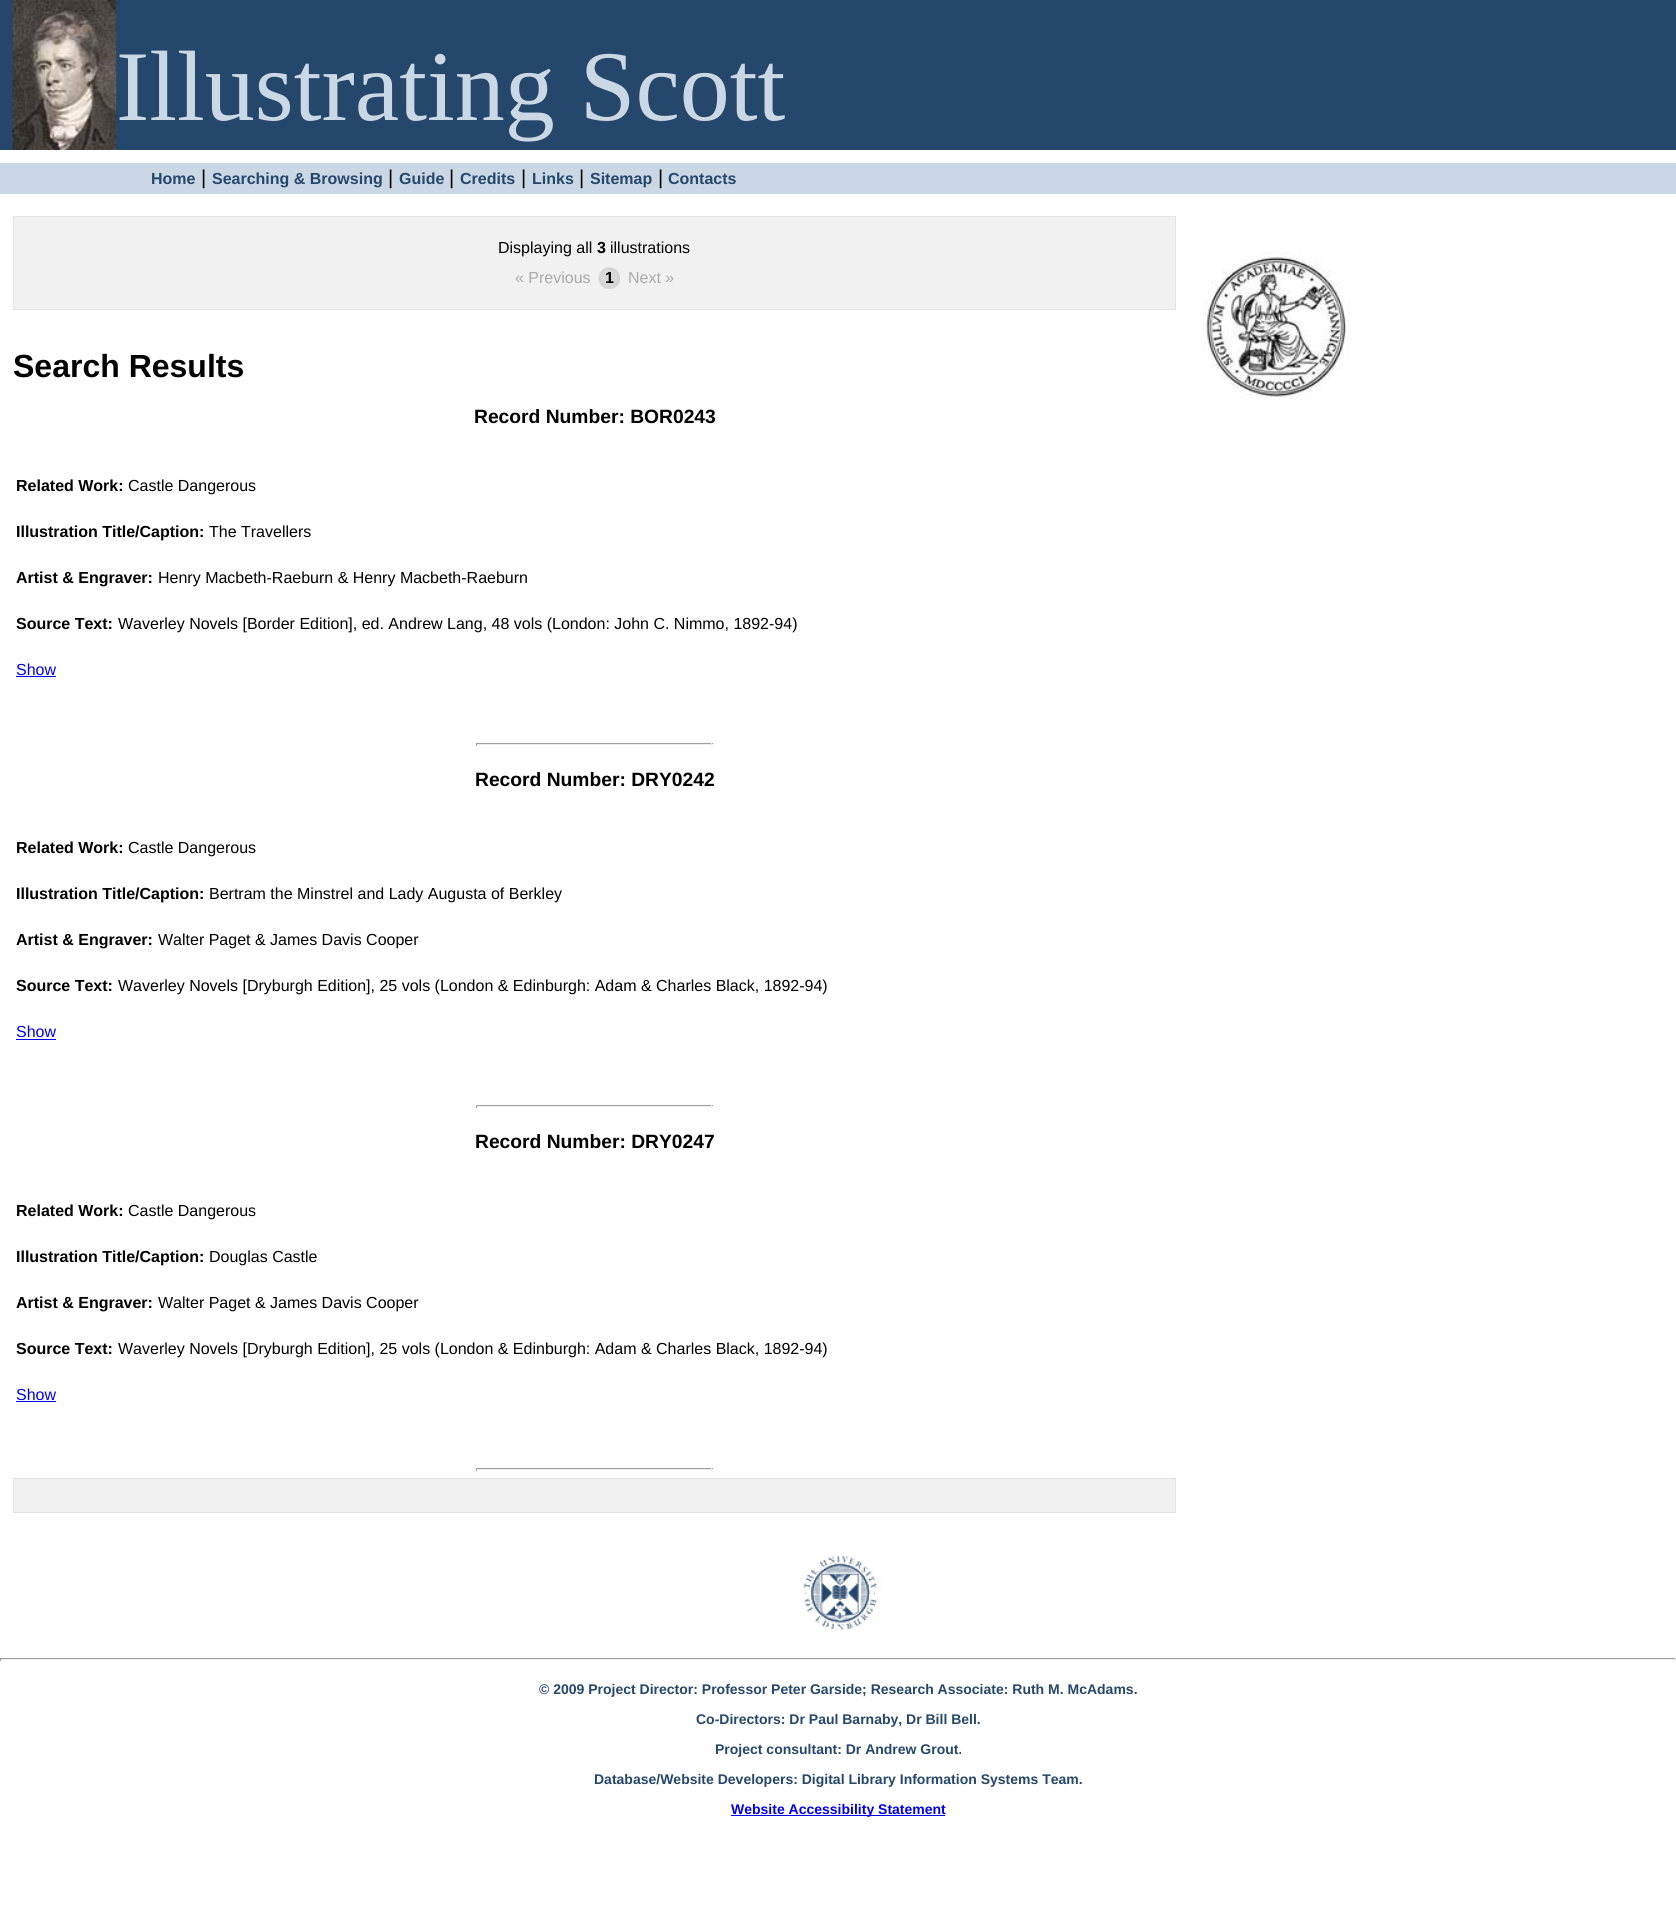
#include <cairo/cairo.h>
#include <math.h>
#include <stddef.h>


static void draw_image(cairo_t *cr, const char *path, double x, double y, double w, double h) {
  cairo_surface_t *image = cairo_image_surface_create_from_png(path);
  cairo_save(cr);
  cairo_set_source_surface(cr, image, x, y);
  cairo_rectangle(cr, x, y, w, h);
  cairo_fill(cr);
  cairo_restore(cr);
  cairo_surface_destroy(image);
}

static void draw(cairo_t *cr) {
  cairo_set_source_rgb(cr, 1, 1, 1);
  cairo_paint(cr);
  cairo_set_source_rgb(cr, 37 / 255.0, 71 / 255.0, 108 / 255.0);
  cairo_rectangle(cr, 0, 0, 1676, 150);
  cairo_fill(cr);
  draw_image(cr, "images/1.png", 12, 0, 105, 150);
  cairo_set_source_rgb(cr, 202 / 255.0, 216 / 255.0, 229 / 255.0);
  cairo_rectangle(cr, 0, 163, 1676, 31);
  cairo_fill(cr);
  cairo_set_source_rgb(cr, 241 / 255.0, 241 / 255.0, 241 / 255.0);
  cairo_rectangle(cr, 13.5, 216.5, 1162, 93);
  cairo_fill_preserve(cr);
  cairo_set_source_rgb(cr, 229 / 255.0, 229 / 255.0, 229 / 255.0);
  cairo_set_line_width(cr, 1);
  cairo_stroke(cr);
  draw_image(cr, "images/2.png", 598, 267, 22, 22);
  cairo_set_source_rgb(cr, 0, 0, 238 / 255.0);
  cairo_rectangle(cr, 16, 676, 40, 1);
  cairo_fill(cr);
  cairo_set_source_rgb(cr, 159 / 255.0, 159 / 255.0, 159 / 255.0);
  cairo_rectangle(cr, 476, 743, 237, 1);
  cairo_fill(cr);
  cairo_set_source_rgb(cr, 238 / 255.0, 238 / 255.0, 238 / 255.0);
  cairo_rectangle(cr, 711, 743, 1, 3);
  cairo_fill(cr);
  cairo_rectangle(cr, 476, 744, 237, 1);
  cairo_fill(cr);
  cairo_set_source_rgb(cr, 159 / 255.0, 159 / 255.0, 159 / 255.0);
  cairo_rectangle(cr, 476, 743, 1, 3);
  cairo_fill(cr);
  cairo_set_source_rgb(cr, 0, 0, 238 / 255.0);
  cairo_rectangle(cr, 16, 1039, 40, 1);
  cairo_fill(cr);
  cairo_set_source_rgb(cr, 159 / 255.0, 159 / 255.0, 159 / 255.0);
  cairo_rectangle(cr, 476, 1105, 237, 1);
  cairo_fill(cr);
  cairo_set_source_rgb(cr, 238 / 255.0, 238 / 255.0, 238 / 255.0);
  cairo_rectangle(cr, 711, 1105, 1, 3);
  cairo_fill(cr);
  cairo_rectangle(cr, 476, 1106, 237, 1);
  cairo_fill(cr);
  cairo_set_source_rgb(cr, 159 / 255.0, 159 / 255.0, 159 / 255.0);
  cairo_rectangle(cr, 476, 1105, 1, 3);
  cairo_fill(cr);
  cairo_set_source_rgb(cr, 0, 0, 238 / 255.0);
  cairo_rectangle(cr, 16, 1401, 40, 1);
  cairo_fill(cr);
  cairo_set_source_rgb(cr, 159 / 255.0, 159 / 255.0, 159 / 255.0);
  cairo_rectangle(cr, 476, 1468, 237, 1);
  cairo_fill(cr);
  cairo_set_source_rgb(cr, 238 / 255.0, 238 / 255.0, 238 / 255.0);
  cairo_rectangle(cr, 711, 1468, 1, 3);
  cairo_fill(cr);
  cairo_rectangle(cr, 476, 1469, 237, 1);
  cairo_fill(cr);
  cairo_set_source_rgb(cr, 159 / 255.0, 159 / 255.0, 159 / 255.0);
  cairo_rectangle(cr, 476, 1468, 1, 3);
  cairo_fill(cr);
  cairo_set_source_rgb(cr, 241 / 255.0, 241 / 255.0, 241 / 255.0);
  cairo_rectangle(cr, 13.5, 1478.5, 1162, 34);
  cairo_fill_preserve(cr);
  cairo_set_source_rgb(cr, 229 / 255.0, 229 / 255.0, 229 / 255.0);
  cairo_stroke(cr);
  draw_image(cr, "images/3.png", 1201, 251, 150, 149);
  draw_image(cr, "images/4.png", 795, 1550, 88, 81);
  cairo_set_source_rgb(cr, 159 / 255.0, 159 / 255.0, 159 / 255.0);
  cairo_rectangle(cr, 0, 1658, 1676, 1);
  cairo_fill(cr);
  cairo_set_source_rgb(cr, 238 / 255.0, 238 / 255.0, 238 / 255.0);
  cairo_rectangle(cr, 1675, 1658, 1, 3);
  cairo_fill(cr);
  cairo_rectangle(cr, 0, 1659, 1676, 1);
  cairo_fill(cr);
  cairo_set_source_rgb(cr, 159 / 255.0, 159 / 255.0, 159 / 255.0);
  cairo_rectangle(cr, 0, 1658, 1, 3);
  cairo_fill(cr);
  cairo_set_source_rgb(cr, 0, 0, 238 / 255.0);
  cairo_rectangle(cr, 731, 1815, 214, 1);
  cairo_fill(cr);
  cairo_select_font_face(cr, "Liberation Serif", CAIRO_FONT_SLANT_NORMAL, CAIRO_FONT_WEIGHT_NORMAL);
  cairo_set_font_size(cr, 100);
  cairo_set_source_rgb(cr, 202 / 255.0, 216 / 255.0, 229 / 255.0);
  cairo_move_to(cr, 116, 120);
  cairo_show_text(cr, "Illustrating Scott");
  cairo_select_font_face(cr, "Liberation Sans", CAIRO_FONT_SLANT_NORMAL, CAIRO_FONT_WEIGHT_BOLD);
  cairo_set_font_size(cr, 16);
  cairo_set_source_rgb(cr, 37 / 255.0, 71 / 255.0, 108 / 255.0);
  cairo_move_to(cr, 151, 184);
  cairo_show_text(cr, "Home");
  cairo_select_font_face(cr, "Liberation Sans", CAIRO_FONT_SLANT_NORMAL, CAIRO_FONT_WEIGHT_NORMAL);
  cairo_set_font_size(cr, 20);
  cairo_set_source_rgb(cr, 0, 0, 0);
  cairo_move_to(cr, 201, 184);
  cairo_show_text(cr, "|");
  cairo_select_font_face(cr, "Liberation Sans", CAIRO_FONT_SLANT_NORMAL, CAIRO_FONT_WEIGHT_BOLD);
  cairo_set_font_size(cr, 16);
  cairo_set_source_rgb(cr, 37 / 255.0, 71 / 255.0, 108 / 255.0);
  cairo_move_to(cr, 212, 184);
  cairo_show_text(cr, "Searching & Browsing");
  cairo_select_font_face(cr, "Liberation Sans", CAIRO_FONT_SLANT_NORMAL, CAIRO_FONT_WEIGHT_NORMAL);
  cairo_set_font_size(cr, 20);
  cairo_set_source_rgb(cr, 0, 0, 0);
  cairo_move_to(cr, 388, 184);
  cairo_show_text(cr, "|");
  cairo_select_font_face(cr, "Liberation Sans", CAIRO_FONT_SLANT_NORMAL, CAIRO_FONT_WEIGHT_BOLD);
  cairo_set_font_size(cr, 16);
  cairo_set_source_rgb(cr, 37 / 255.0, 71 / 255.0, 108 / 255.0);
  cairo_move_to(cr, 399, 184);
  cairo_show_text(cr, "Guide");
  cairo_select_font_face(cr, "Liberation Sans", CAIRO_FONT_SLANT_NORMAL, CAIRO_FONT_WEIGHT_NORMAL);
  cairo_set_font_size(cr, 20);
  cairo_set_source_rgb(cr, 0, 0, 0);
  cairo_move_to(cr, 449, 184);
  cairo_show_text(cr, "|");
  cairo_select_font_face(cr, "Liberation Sans", CAIRO_FONT_SLANT_NORMAL, CAIRO_FONT_WEIGHT_BOLD);
  cairo_set_font_size(cr, 16);
  cairo_set_source_rgb(cr, 37 / 255.0, 71 / 255.0, 108 / 255.0);
  cairo_move_to(cr, 460, 184);
  cairo_show_text(cr, "Credits");
  cairo_select_font_face(cr, "Liberation Sans", CAIRO_FONT_SLANT_NORMAL, CAIRO_FONT_WEIGHT_NORMAL);
  cairo_set_font_size(cr, 20);
  cairo_set_source_rgb(cr, 0, 0, 0);
  cairo_move_to(cr, 521, 184);
  cairo_show_text(cr, "|");
  cairo_select_font_face(cr, "Liberation Sans", CAIRO_FONT_SLANT_NORMAL, CAIRO_FONT_WEIGHT_BOLD);
  cairo_set_font_size(cr, 16);
  cairo_set_source_rgb(cr, 37 / 255.0, 71 / 255.0, 108 / 255.0);
  cairo_move_to(cr, 532, 184);
  cairo_show_text(cr, "Links");
  cairo_select_font_face(cr, "Liberation Sans", CAIRO_FONT_SLANT_NORMAL, CAIRO_FONT_WEIGHT_NORMAL);
  cairo_set_font_size(cr, 20);
  cairo_set_source_rgb(cr, 0, 0, 0);
  cairo_move_to(cr, 579, 184);
  cairo_show_text(cr, "|");
  cairo_select_font_face(cr, "Liberation Sans", CAIRO_FONT_SLANT_NORMAL, CAIRO_FONT_WEIGHT_BOLD);
  cairo_set_font_size(cr, 16);
  cairo_set_source_rgb(cr, 37 / 255.0, 71 / 255.0, 108 / 255.0);
  cairo_move_to(cr, 590, 184);
  cairo_show_text(cr, "Sitemap");
  cairo_select_font_face(cr, "Liberation Sans", CAIRO_FONT_SLANT_NORMAL, CAIRO_FONT_WEIGHT_NORMAL);
  cairo_set_font_size(cr, 20);
  cairo_set_source_rgb(cr, 0, 0, 0);
  cairo_move_to(cr, 658, 184);
  cairo_show_text(cr, "|");
  cairo_select_font_face(cr, "Liberation Sans", CAIRO_FONT_SLANT_NORMAL, CAIRO_FONT_WEIGHT_BOLD);
  cairo_set_font_size(cr, 16);
  cairo_set_source_rgb(cr, 37 / 255.0, 71 / 255.0, 108 / 255.0);
  cairo_move_to(cr, 668, 184);
  cairo_show_text(cr, "Contacts");
  cairo_select_font_face(cr, "Liberation Sans", CAIRO_FONT_SLANT_NORMAL, CAIRO_FONT_WEIGHT_NORMAL);
  cairo_set_source_rgb(cr, 0, 0, 0);
  cairo_move_to(cr, 498, 253);
  cairo_show_text(cr, "Displaying all");
  cairo_select_font_face(cr, "Liberation Sans", CAIRO_FONT_SLANT_NORMAL, CAIRO_FONT_WEIGHT_BOLD);
  cairo_move_to(cr, 597, 253);
  cairo_show_text(cr, "3");
  cairo_select_font_face(cr, "Liberation Sans", CAIRO_FONT_SLANT_NORMAL, CAIRO_FONT_WEIGHT_NORMAL);
  cairo_move_to(cr, 610, 253);
  cairo_show_text(cr, "illustrations");
  cairo_set_source_rgb(cr, 170 / 255.0, 170 / 255.0, 170 / 255.0);
  cairo_move_to(cr, 515, 283);
  cairo_show_text(cr, "« Previous");
  cairo_select_font_face(cr, "Liberation Sans", CAIRO_FONT_SLANT_NORMAL, CAIRO_FONT_WEIGHT_BOLD);
  cairo_set_source_rgb(cr, 0, 0, 0);
  cairo_move_to(cr, 605, 283);
  cairo_show_text(cr, "1");
  cairo_select_font_face(cr, "Liberation Sans", CAIRO_FONT_SLANT_NORMAL, CAIRO_FONT_WEIGHT_NORMAL);
  cairo_set_source_rgb(cr, 170 / 255.0, 170 / 255.0, 170 / 255.0);
  cairo_move_to(cr, 628, 283);
  cairo_show_text(cr, "Next »");
  cairo_select_font_face(cr, "Liberation Sans", CAIRO_FONT_SLANT_NORMAL, CAIRO_FONT_WEIGHT_BOLD);
  cairo_set_font_size(cr, 32);
  cairo_set_source_rgb(cr, 0, 0, 0);
  cairo_move_to(cr, 13, 377);
  cairo_show_text(cr, "Search Results");
  cairo_set_font_size(cr, 19.25);
  cairo_move_to(cr, 474, 423);
  cairo_show_text(cr, "Record Number: BOR0243");
  cairo_set_font_size(cr, 16);
  cairo_move_to(cr, 16, 491);
  cairo_show_text(cr, "Related Work:");
  cairo_select_font_face(cr, "Liberation Sans", CAIRO_FONT_SLANT_NORMAL, CAIRO_FONT_WEIGHT_NORMAL);
  cairo_move_to(cr, 128, 491);
  cairo_show_text(cr, "Castle Dangerous");
  cairo_select_font_face(cr, "Liberation Sans", CAIRO_FONT_SLANT_NORMAL, CAIRO_FONT_WEIGHT_BOLD);
  cairo_move_to(cr, 16, 537);
  cairo_show_text(cr, "Illustration Title/Caption:");
  cairo_select_font_face(cr, "Liberation Sans", CAIRO_FONT_SLANT_NORMAL, CAIRO_FONT_WEIGHT_NORMAL);
  cairo_move_to(cr, 209, 537);
  cairo_show_text(cr, "The Travellers");
  cairo_select_font_face(cr, "Liberation Sans", CAIRO_FONT_SLANT_NORMAL, CAIRO_FONT_WEIGHT_BOLD);
  cairo_move_to(cr, 16, 583);
  cairo_show_text(cr, "Artist & Engraver:");
  cairo_select_font_face(cr, "Liberation Sans", CAIRO_FONT_SLANT_NORMAL, CAIRO_FONT_WEIGHT_NORMAL);
  cairo_move_to(cr, 158, 583);
  cairo_show_text(cr, "Henry Macbeth-Raeburn & Henry Macbeth-Raeburn");
  cairo_select_font_face(cr, "Liberation Sans", CAIRO_FONT_SLANT_NORMAL, CAIRO_FONT_WEIGHT_BOLD);
  cairo_move_to(cr, 16, 629);
  cairo_show_text(cr, "Source Text:");
  cairo_select_font_face(cr, "Liberation Sans", CAIRO_FONT_SLANT_NORMAL, CAIRO_FONT_WEIGHT_NORMAL);
  cairo_move_to(cr, 118, 629);
  cairo_show_text(cr, "Waverley Novels [Border Edition], ed. Andrew Lang, 48 vols (London: John C. Nimmo, 1892-94)");
  cairo_set_source_rgb(cr, 0, 0, 238 / 255.0);
  cairo_move_to(cr, 16, 675);
  cairo_show_text(cr, "Show");
  cairo_select_font_face(cr, "Liberation Sans", CAIRO_FONT_SLANT_NORMAL, CAIRO_FONT_WEIGHT_BOLD);
  cairo_set_font_size(cr, 19.25);
  cairo_set_source_rgb(cr, 0, 0, 0);
  cairo_move_to(cr, 475, 786);
  cairo_show_text(cr, "Record Number: DRY0242");
  cairo_set_font_size(cr, 16);
  cairo_move_to(cr, 16, 853);
  cairo_show_text(cr, "Related Work:");
  cairo_select_font_face(cr, "Liberation Sans", CAIRO_FONT_SLANT_NORMAL, CAIRO_FONT_WEIGHT_NORMAL);
  cairo_move_to(cr, 128, 853);
  cairo_show_text(cr, "Castle Dangerous");
  cairo_select_font_face(cr, "Liberation Sans", CAIRO_FONT_SLANT_NORMAL, CAIRO_FONT_WEIGHT_BOLD);
  cairo_move_to(cr, 16, 899);
  cairo_show_text(cr, "Illustration Title/Caption:");
  cairo_select_font_face(cr, "Liberation Sans", CAIRO_FONT_SLANT_NORMAL, CAIRO_FONT_WEIGHT_NORMAL);
  cairo_move_to(cr, 209, 899);
  cairo_show_text(cr, "Bertram the Minstrel and Lady Augusta of Berkley");
  cairo_select_font_face(cr, "Liberation Sans", CAIRO_FONT_SLANT_NORMAL, CAIRO_FONT_WEIGHT_BOLD);
  cairo_move_to(cr, 16, 945);
  cairo_show_text(cr, "Artist & Engraver:");
  cairo_select_font_face(cr, "Liberation Sans", CAIRO_FONT_SLANT_NORMAL, CAIRO_FONT_WEIGHT_NORMAL);
  cairo_move_to(cr, 158, 945);
  cairo_show_text(cr, "Walter Paget & James Davis Cooper");
  cairo_select_font_face(cr, "Liberation Sans", CAIRO_FONT_SLANT_NORMAL, CAIRO_FONT_WEIGHT_BOLD);
  cairo_move_to(cr, 16, 991);
  cairo_show_text(cr, "Source Text:");
  cairo_select_font_face(cr, "Liberation Sans", CAIRO_FONT_SLANT_NORMAL, CAIRO_FONT_WEIGHT_NORMAL);
  cairo_move_to(cr, 118, 991);
  cairo_show_text(cr, "Waverley Novels [Dryburgh Edition], 25 vols (London & Edinburgh: Adam & Charles Black, 1892-94)");
  cairo_set_source_rgb(cr, 0, 0, 238 / 255.0);
  cairo_move_to(cr, 16, 1037);
  cairo_show_text(cr, "Show");
  cairo_select_font_face(cr, "Liberation Sans", CAIRO_FONT_SLANT_NORMAL, CAIRO_FONT_WEIGHT_BOLD);
  cairo_set_font_size(cr, 19.25);
  cairo_set_source_rgb(cr, 0, 0, 0);
  cairo_move_to(cr, 475, 1148);
  cairo_show_text(cr, "Record Number: DRY0247");
  cairo_set_font_size(cr, 16);
  cairo_move_to(cr, 16, 1216);
  cairo_show_text(cr, "Related Work:");
  cairo_select_font_face(cr, "Liberation Sans", CAIRO_FONT_SLANT_NORMAL, CAIRO_FONT_WEIGHT_NORMAL);
  cairo_move_to(cr, 128, 1216);
  cairo_show_text(cr, "Castle Dangerous");
  cairo_select_font_face(cr, "Liberation Sans", CAIRO_FONT_SLANT_NORMAL, CAIRO_FONT_WEIGHT_BOLD);
  cairo_move_to(cr, 16, 1262);
  cairo_show_text(cr, "Illustration Title/Caption:");
  cairo_select_font_face(cr, "Liberation Sans", CAIRO_FONT_SLANT_NORMAL, CAIRO_FONT_WEIGHT_NORMAL);
  cairo_move_to(cr, 209, 1262);
  cairo_show_text(cr, "Douglas Castle");
  cairo_select_font_face(cr, "Liberation Sans", CAIRO_FONT_SLANT_NORMAL, CAIRO_FONT_WEIGHT_BOLD);
  cairo_move_to(cr, 16, 1308);
  cairo_show_text(cr, "Artist & Engraver:");
  cairo_select_font_face(cr, "Liberation Sans", CAIRO_FONT_SLANT_NORMAL, CAIRO_FONT_WEIGHT_NORMAL);
  cairo_move_to(cr, 158, 1308);
  cairo_show_text(cr, "Walter Paget & James Davis Cooper");
  cairo_select_font_face(cr, "Liberation Sans", CAIRO_FONT_SLANT_NORMAL, CAIRO_FONT_WEIGHT_BOLD);
  cairo_move_to(cr, 16, 1354);
  cairo_show_text(cr, "Source Text:");
  cairo_select_font_face(cr, "Liberation Sans", CAIRO_FONT_SLANT_NORMAL, CAIRO_FONT_WEIGHT_NORMAL);
  cairo_move_to(cr, 118, 1354);
  cairo_show_text(cr, "Waverley Novels [Dryburgh Edition], 25 vols (London & Edinburgh: Adam & Charles Black, 1892-94)");
  cairo_set_source_rgb(cr, 0, 0, 238 / 255.0);
  cairo_move_to(cr, 16, 1400);
  cairo_show_text(cr, "Show");
  cairo_select_font_face(cr, "Liberation Sans", CAIRO_FONT_SLANT_NORMAL, CAIRO_FONT_WEIGHT_BOLD);
  cairo_set_font_size(cr, 14);
  cairo_set_source_rgb(cr, 37 / 255.0, 71 / 255.0, 108 / 255.0);
  cairo_move_to(cr, 539, 1694);
  cairo_show_text(cr, "© 2009 Project Director: Professor Peter Garside; Research Associate: Ruth M. McAdams.");
  cairo_move_to(cr, 696, 1724);
  cairo_show_text(cr, "Co-Directors: Dr Paul Barnaby, Dr Bill Bell.");
  cairo_move_to(cr, 715, 1754);
  cairo_show_text(cr, "Project consultant: Dr Andrew Grout.");
  cairo_move_to(cr, 594, 1784);
  cairo_show_text(cr, "Database/Website Developers: Digital Library Information Systems Team.");
  cairo_set_source_rgb(cr, 0, 0, 238 / 255.0);
  cairo_move_to(cr, 731, 1814);
  cairo_show_text(cr, "Website Accessibility Statement");
}

int main(void) {
  cairo_surface_t *surface = cairo_image_surface_create(CAIRO_FORMAT_RGB24, 1676, 1905);
  cairo_t *cr = cairo_create(surface);
  cairo_font_options_t *options = cairo_font_options_create();
  cairo_font_options_set_hint_metrics(options, CAIRO_HINT_METRICS_OFF);
  cairo_font_options_set_hint_style(options, CAIRO_HINT_STYLE_NONE);
  cairo_set_font_options(cr, options);
  cairo_set_miter_limit(cr, 4);
  draw(cr);
  cairo_surface_write_to_png(surface, "out.png");
  cairo_font_options_destroy(options);
  cairo_destroy(cr);
  cairo_surface_destroy(surface);
  return 0;
}
